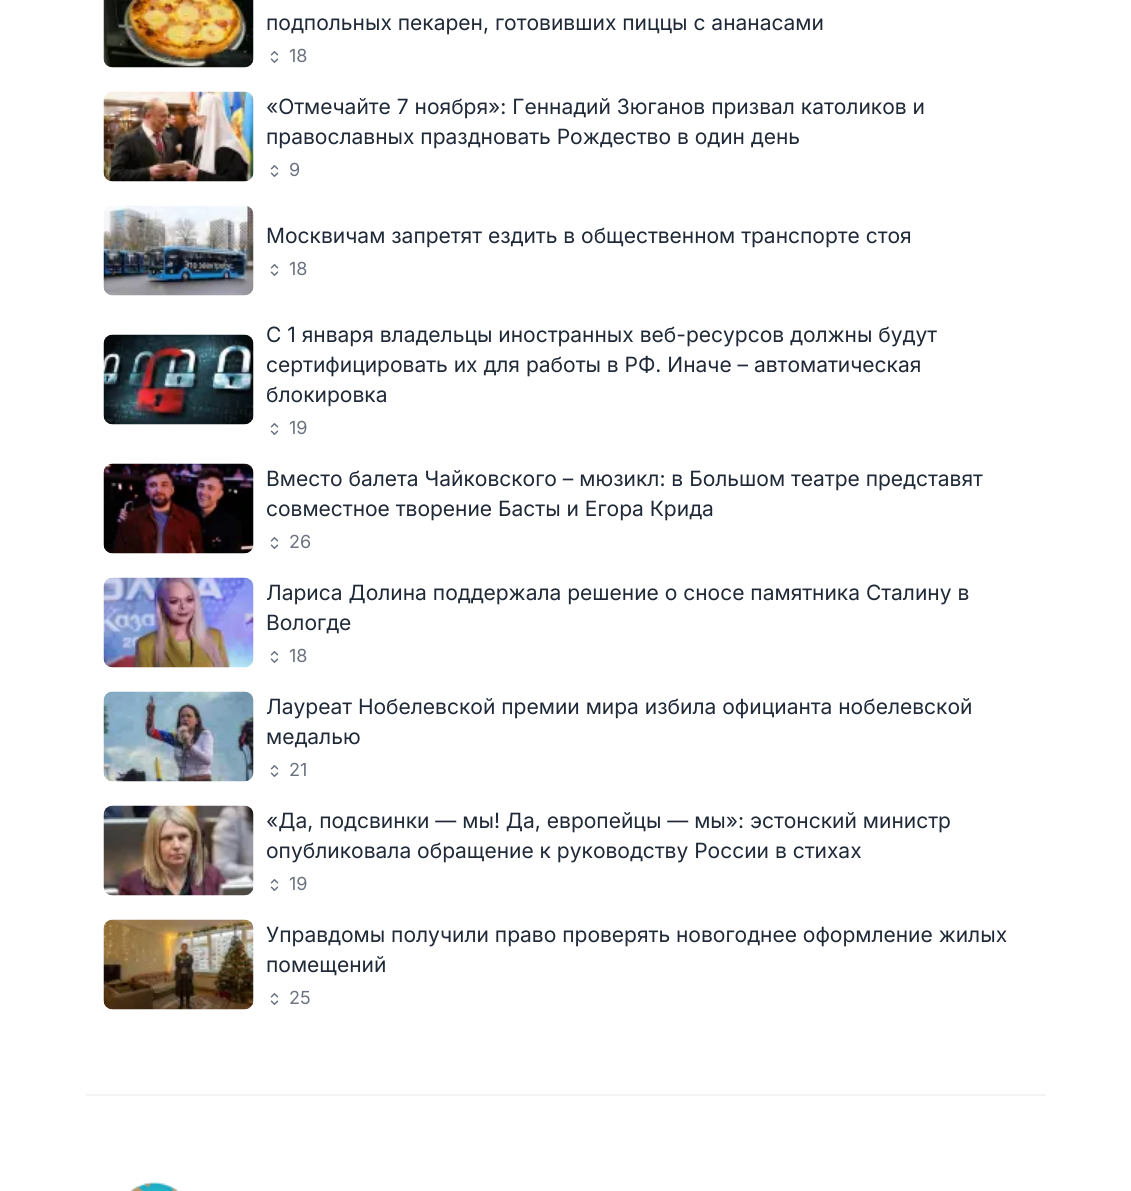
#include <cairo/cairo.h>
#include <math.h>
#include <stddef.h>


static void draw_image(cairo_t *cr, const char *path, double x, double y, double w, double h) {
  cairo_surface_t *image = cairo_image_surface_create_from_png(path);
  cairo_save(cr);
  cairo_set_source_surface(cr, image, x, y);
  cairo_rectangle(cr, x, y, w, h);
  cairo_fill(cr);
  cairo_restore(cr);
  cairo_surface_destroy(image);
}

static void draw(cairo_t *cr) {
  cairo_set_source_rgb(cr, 1, 1, 1);
  cairo_paint(cr);
  draw_image(cr, "images/1.png", 103, 0, 151, 68);
  draw_image(cr, "images/2.png", 270, 51, 9, 12);
  draw_image(cr, "images/3.png", 103, 91, 151, 91);
  draw_image(cr, "images/2.png", 270, 165, 9, 12);
  draw_image(cr, "images/4.png", 103, 205, 151, 91);
  draw_image(cr, "images/2.png", 270, 264, 9, 12);
  draw_image(cr, "images/5.png", 103, 334, 151, 91);
  draw_image(cr, "images/2.png", 270, 423, 9, 12);
  draw_image(cr, "images/6.png", 103, 463, 151, 91);
  draw_image(cr, "images/2.png", 270, 537, 9, 12);
  draw_image(cr, "images/7.png", 103, 577, 151, 91);
  draw_image(cr, "images/2.png", 270, 651, 9, 12);
  draw_image(cr, "images/8.png", 103, 691, 151, 91);
  draw_image(cr, "images/2.png", 270, 765, 9, 12);
  draw_image(cr, "images/9.png", 103, 805, 151, 91);
  draw_image(cr, "images/2.png", 270, 879, 9, 12);
  draw_image(cr, "images/10.png", 103, 919, 151, 91);
  draw_image(cr, "images/2.png", 270, 993, 9, 12);
  cairo_set_source_rgb(cr, 243 / 255.0, 244 / 255.0, 246 / 255.0);
  cairo_rectangle(cr, 86, 1094, 960, 2);
  cairo_fill(cr);
  draw_image(cr, "images/11.png", 130, 1181, 49, 10);
  cairo_select_font_face(cr, "Inter", CAIRO_FONT_SLANT_NORMAL, CAIRO_FONT_WEIGHT_NORMAL);
  cairo_set_font_size(cr, 21);
  cairo_set_source_rgb(cr, 31 / 255.0, 41 / 255.0, 55 / 255.0);
  cairo_move_to(cr, 266, 30);
  cairo_show_text(cr, "подпольных пекарен, готовивших пиццы с ананасами");
  cairo_set_font_size(cr, 18);
  cairo_set_source_rgb(cr, 107 / 255.0, 114 / 255.0, 128 / 255.0);
  cairo_move_to(cr, 289, 62);
  cairo_show_text(cr, "18");
  cairo_set_font_size(cr, 21);
  cairo_set_source_rgb(cr, 31 / 255.0, 41 / 255.0, 55 / 255.0);
  cairo_move_to(cr, 266, 114);
  cairo_show_text(cr, "«Отмечайте 7 ноября»: Геннадий Зюганов призвал католиков и");
  cairo_move_to(cr, 266, 144);
  cairo_show_text(cr, "православных праздновать Рождество в один день");
  cairo_set_font_size(cr, 18);
  cairo_set_source_rgb(cr, 107 / 255.0, 114 / 255.0, 128 / 255.0);
  cairo_move_to(cr, 289, 176);
  cairo_show_text(cr, "9");
  cairo_set_font_size(cr, 21);
  cairo_set_source_rgb(cr, 31 / 255.0, 41 / 255.0, 55 / 255.0);
  cairo_move_to(cr, 266, 243);
  cairo_show_text(cr, "Москвичам запретят ездить в общественном транспорте стоя");
  cairo_set_font_size(cr, 18);
  cairo_set_source_rgb(cr, 107 / 255.0, 114 / 255.0, 128 / 255.0);
  cairo_move_to(cr, 289, 275);
  cairo_show_text(cr, "18");
  cairo_set_font_size(cr, 21);
  cairo_set_source_rgb(cr, 31 / 255.0, 41 / 255.0, 55 / 255.0);
  cairo_move_to(cr, 266, 342);
  cairo_show_text(cr, "С 1 января владельцы иностранных веб-ресурсов должны будут");
  cairo_move_to(cr, 266, 372);
  cairo_show_text(cr, "сертифицировать их для работы в РФ. Иначе – автоматическая");
  cairo_move_to(cr, 266, 402);
  cairo_show_text(cr, "блокировка");
  cairo_set_font_size(cr, 18);
  cairo_set_source_rgb(cr, 107 / 255.0, 114 / 255.0, 128 / 255.0);
  cairo_move_to(cr, 289, 434);
  cairo_show_text(cr, "19");
  cairo_set_font_size(cr, 21);
  cairo_set_source_rgb(cr, 31 / 255.0, 41 / 255.0, 55 / 255.0);
  cairo_move_to(cr, 266, 486);
  cairo_show_text(cr, "Вместо балета Чайковского – мюзикл: в Большом театре представят");
  cairo_move_to(cr, 266, 516);
  cairo_show_text(cr, "совместное творение Басты и Егора Крида");
  cairo_set_font_size(cr, 18);
  cairo_set_source_rgb(cr, 107 / 255.0, 114 / 255.0, 128 / 255.0);
  cairo_move_to(cr, 289, 548);
  cairo_show_text(cr, "26");
  cairo_set_font_size(cr, 21);
  cairo_set_source_rgb(cr, 31 / 255.0, 41 / 255.0, 55 / 255.0);
  cairo_move_to(cr, 266, 600);
  cairo_show_text(cr, "Лариса Долина поддержала решение о сносе памятника Сталину в");
  cairo_move_to(cr, 266, 630);
  cairo_show_text(cr, "Вологде");
  cairo_set_font_size(cr, 18);
  cairo_set_source_rgb(cr, 107 / 255.0, 114 / 255.0, 128 / 255.0);
  cairo_move_to(cr, 289, 662);
  cairo_show_text(cr, "18");
  cairo_set_font_size(cr, 21);
  cairo_set_source_rgb(cr, 31 / 255.0, 41 / 255.0, 55 / 255.0);
  cairo_move_to(cr, 266, 714);
  cairo_show_text(cr, "Лауреат Нобелевской премии мира избила официанта нобелевской");
  cairo_move_to(cr, 266, 744);
  cairo_show_text(cr, "медалью");
  cairo_set_font_size(cr, 18);
  cairo_set_source_rgb(cr, 107 / 255.0, 114 / 255.0, 128 / 255.0);
  cairo_move_to(cr, 289, 776);
  cairo_show_text(cr, "21");
  cairo_set_font_size(cr, 21);
  cairo_set_source_rgb(cr, 31 / 255.0, 41 / 255.0, 55 / 255.0);
  cairo_move_to(cr, 266, 828);
  cairo_show_text(cr, "«Да, подсвинки — мы! Да, европейцы — мы»: эстонский министр");
  cairo_move_to(cr, 266, 858);
  cairo_show_text(cr, "опубликовала обращение к руководству России в стихах");
  cairo_set_font_size(cr, 18);
  cairo_set_source_rgb(cr, 107 / 255.0, 114 / 255.0, 128 / 255.0);
  cairo_move_to(cr, 289, 890);
  cairo_show_text(cr, "19");
  cairo_set_font_size(cr, 21);
  cairo_set_source_rgb(cr, 31 / 255.0, 41 / 255.0, 55 / 255.0);
  cairo_move_to(cr, 266, 942);
  cairo_show_text(cr, "Управдомы получили право проверять новогоднее оформление жилых");
  cairo_move_to(cr, 266, 972);
  cairo_show_text(cr, "помещений");
  cairo_set_font_size(cr, 18);
  cairo_set_source_rgb(cr, 107 / 255.0, 114 / 255.0, 128 / 255.0);
  cairo_move_to(cr, 289, 1004);
  cairo_show_text(cr, "25");
}

int main(void) {
  cairo_surface_t *surface = cairo_image_surface_create(CAIRO_FORMAT_RGB24, 1131, 1191);
  cairo_t *cr = cairo_create(surface);
  cairo_font_options_t *options = cairo_font_options_create();
  cairo_font_options_set_hint_metrics(options, CAIRO_HINT_METRICS_OFF);
  cairo_font_options_set_hint_style(options, CAIRO_HINT_STYLE_NONE);
  cairo_set_font_options(cr, options);
  cairo_set_miter_limit(cr, 4);
  draw(cr);
  cairo_surface_write_to_png(surface, "out.png");
  cairo_font_options_destroy(options);
  cairo_destroy(cr);
  cairo_surface_destroy(surface);
  return 0;
}
